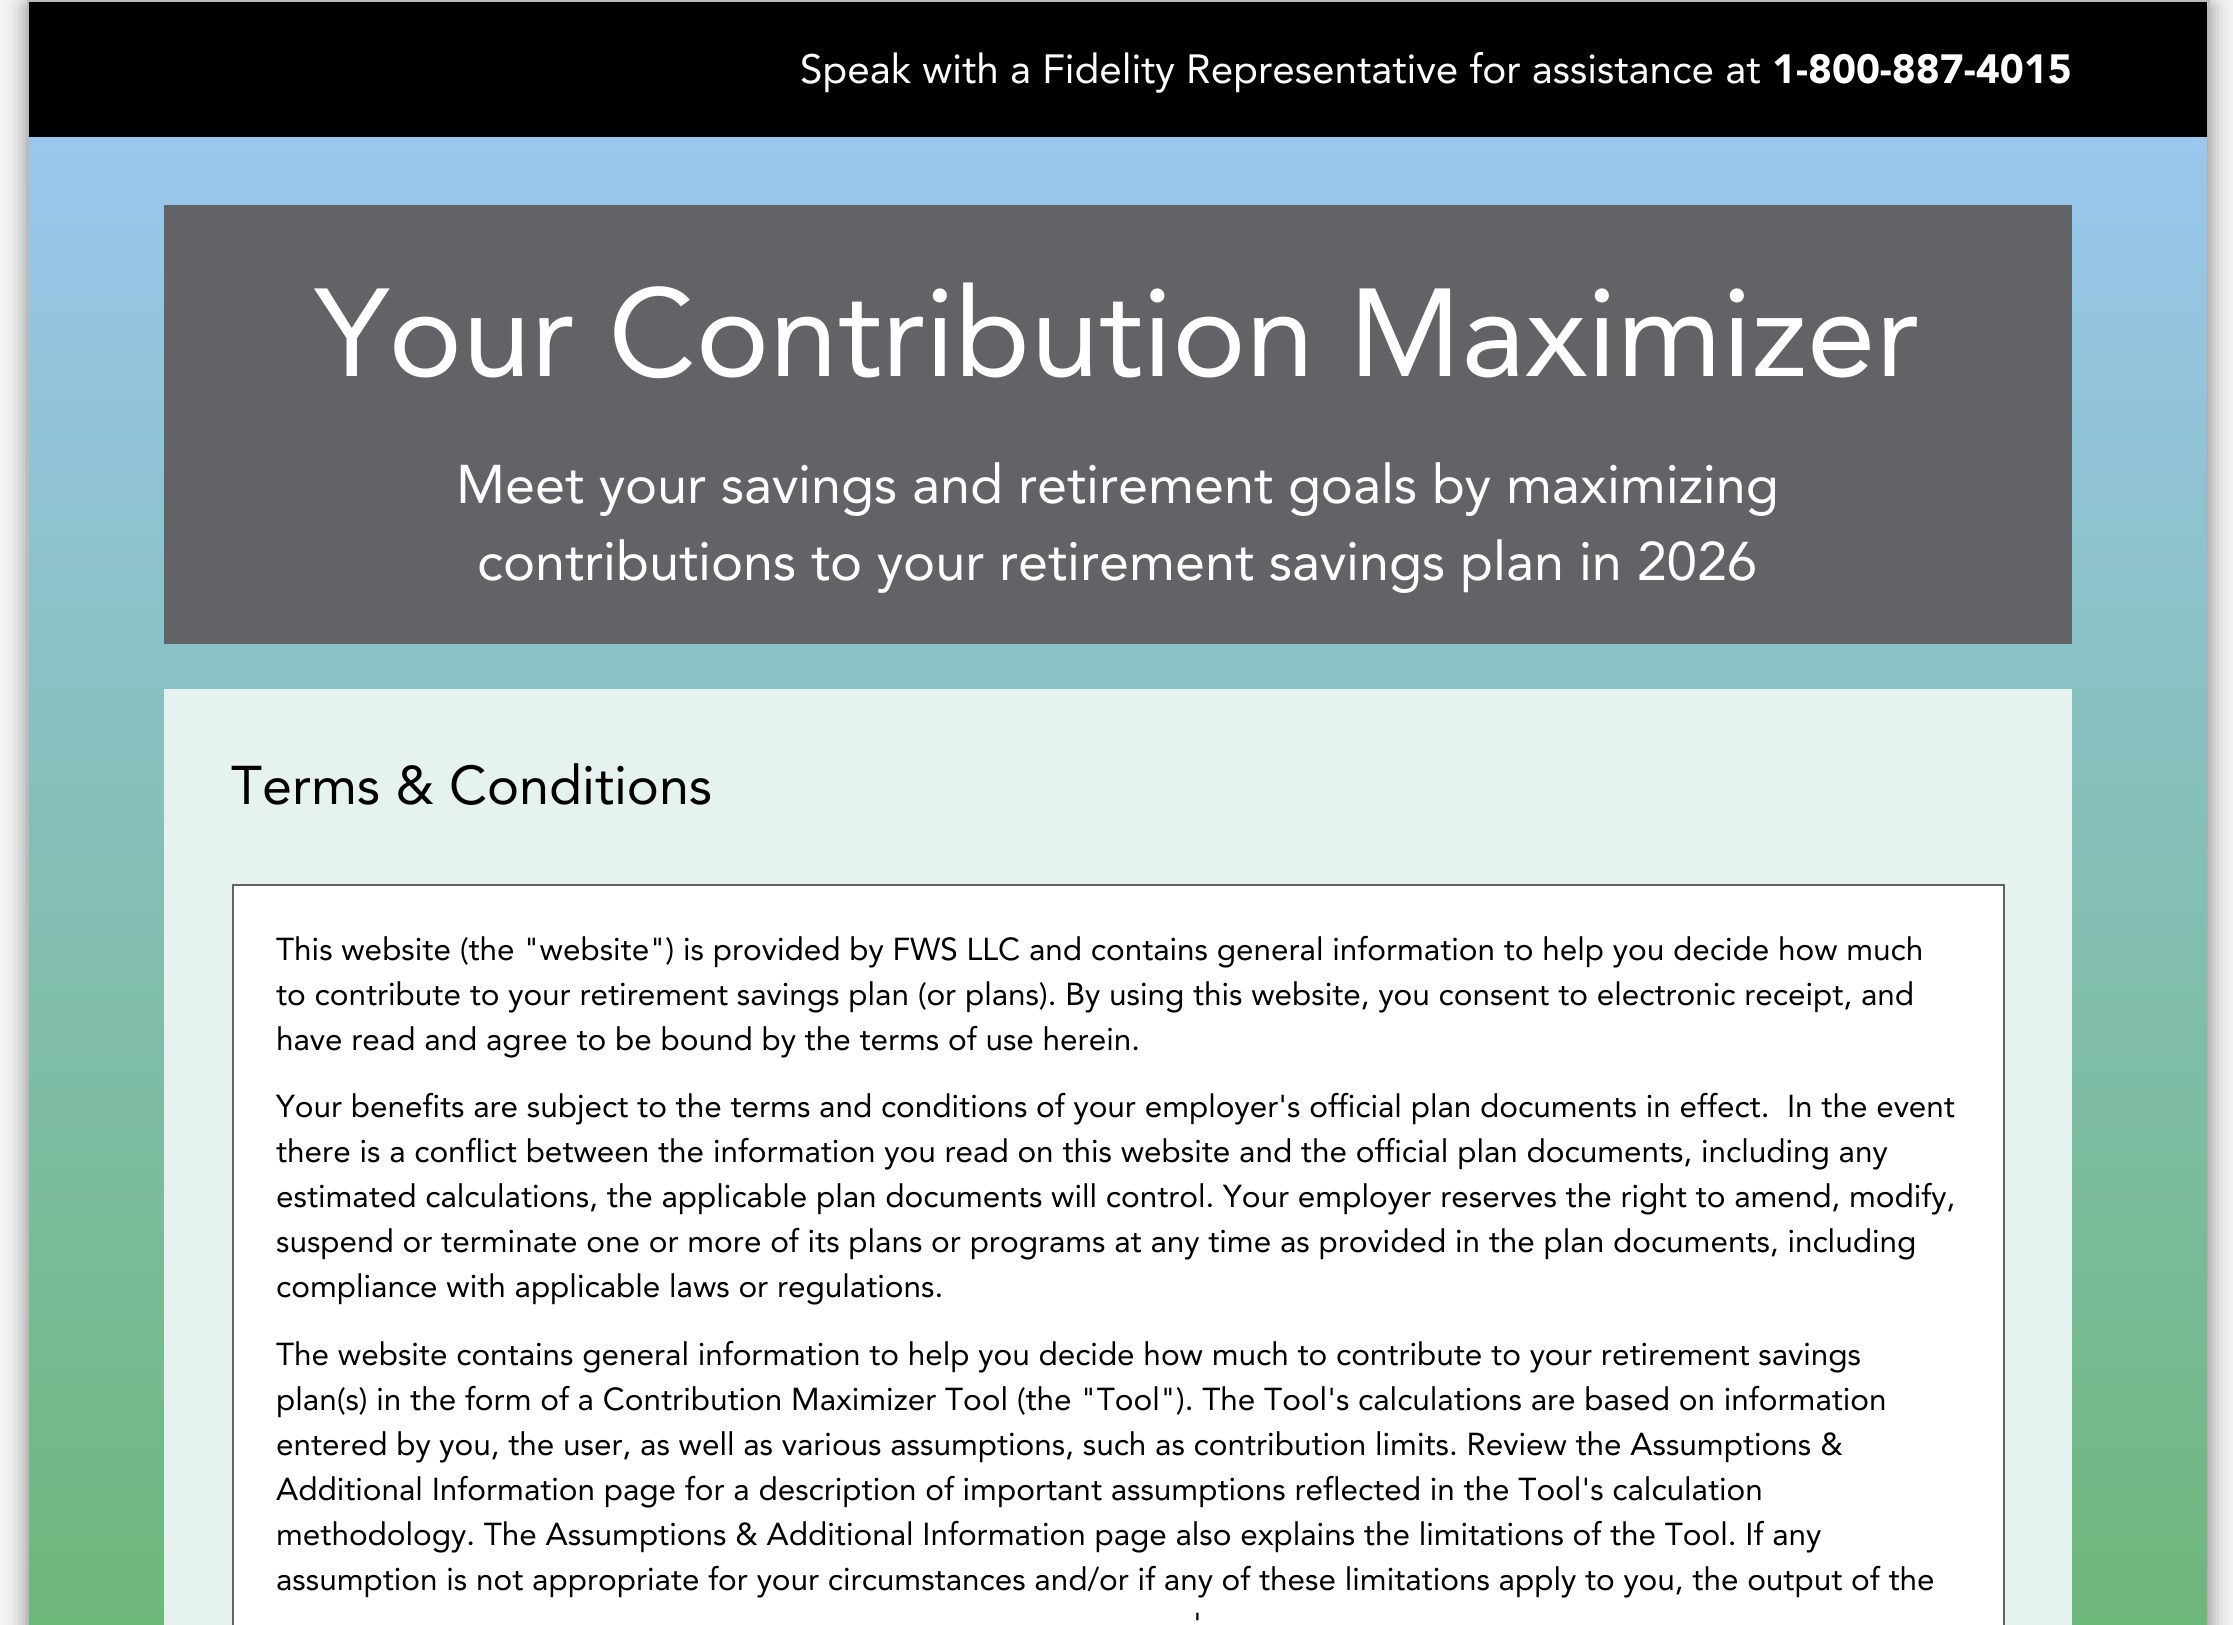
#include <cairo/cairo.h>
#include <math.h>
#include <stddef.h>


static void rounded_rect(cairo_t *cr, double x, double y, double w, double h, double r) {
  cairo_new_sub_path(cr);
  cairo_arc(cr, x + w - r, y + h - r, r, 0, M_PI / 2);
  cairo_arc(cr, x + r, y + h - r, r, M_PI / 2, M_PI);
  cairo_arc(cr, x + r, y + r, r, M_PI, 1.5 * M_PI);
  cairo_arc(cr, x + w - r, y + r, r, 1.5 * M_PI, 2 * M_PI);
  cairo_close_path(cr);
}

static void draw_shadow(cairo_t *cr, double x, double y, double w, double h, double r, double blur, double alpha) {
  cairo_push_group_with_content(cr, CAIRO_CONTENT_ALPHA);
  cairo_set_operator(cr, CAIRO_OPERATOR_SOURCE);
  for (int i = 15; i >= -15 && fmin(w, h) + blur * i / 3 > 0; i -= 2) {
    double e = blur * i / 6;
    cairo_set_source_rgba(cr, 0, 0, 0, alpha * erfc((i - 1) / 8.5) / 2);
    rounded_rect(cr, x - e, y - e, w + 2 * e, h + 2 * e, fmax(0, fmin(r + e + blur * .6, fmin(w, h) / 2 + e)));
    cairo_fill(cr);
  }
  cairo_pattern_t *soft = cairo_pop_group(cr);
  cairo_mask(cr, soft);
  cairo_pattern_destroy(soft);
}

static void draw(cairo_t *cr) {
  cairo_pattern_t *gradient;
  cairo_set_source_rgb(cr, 245 / 255.0, 245 / 255.0, 245 / 255.0);
  cairo_paint(cr);
  cairo_set_source_rgb(cr, 136 / 255.0, 136 / 255.0, 136 / 255.0);
  draw_shadow(cr, 27, 5, 2183, 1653, 0, 11, 1);
  cairo_rectangle(cr, 28, 1, 2181, 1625);
  cairo_set_source_rgb(cr, 187 / 255.0, 187 / 255.0, 187 / 255.0);
  cairo_stroke(cr);
  cairo_set_source_rgb(cr, 0, 0, 0);
  cairo_rectangle(cr, 29, 2, 2178, 135);
  cairo_fill(cr);
  gradient = cairo_pattern_create_linear(1118, 137, 1118, 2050);
  cairo_pattern_add_color_stop_rgba(gradient, 0, 153 / 255.0, 199 / 255.0, 238 / 255.0, 1);
  cairo_pattern_add_color_stop_rgba(gradient, 1, 98 / 255.0, 178 / 255.0, 90 / 255.0, 1);
  cairo_set_source(cr, gradient);
  cairo_pattern_destroy(gradient);
  cairo_rectangle(cr, 29, 137, 2178, 1488);
  cairo_fill(cr);
  cairo_set_source_rgb(cr, 98 / 255.0, 99 / 255.0, 102 / 255.0);
  cairo_rectangle(cr, 164, 205, 1908, 439);
  cairo_fill(cr);
  cairo_set_source_rgb(cr, 230 / 255.0, 242 / 255.0, 240 / 255.0);
  cairo_rectangle(cr, 164, 689, 1908, 936);
  cairo_fill(cr);
  cairo_set_source_rgb(cr, 1, 1, 1);
  cairo_rectangle(cr, 233, 885, 1771, 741);
  cairo_fill_preserve(cr);
  cairo_set_source_rgb(cr, 98 / 255.0, 99 / 255.0, 102 / 255.0);
  cairo_stroke(cr);
  cairo_select_font_face(cr, "Avenir", CAIRO_FONT_SLANT_NORMAL, CAIRO_FONT_WEIGHT_NORMAL);
  cairo_set_font_size(cr, 40.5);
  cairo_set_source_rgb(cr, 1, 1, 1);
  cairo_move_to(cr, 800, 83);
  cairo_show_text(cr, "Speak with a Fidelity Representative for assistance at");
  cairo_select_font_face(cr, "Avenir Black", CAIRO_FONT_SLANT_NORMAL, CAIRO_FONT_WEIGHT_NORMAL);
  cairo_move_to(cr, 1772, 83);
  cairo_show_text(cr, "1-800-887-4015");
  cairo_select_font_face(cr, "Avenir", CAIRO_FONT_SLANT_NORMAL, CAIRO_FONT_WEIGHT_NORMAL);
  cairo_set_font_size(cr, 123.75);
  cairo_move_to(cr, 315, 376);
  cairo_show_text(cr, "Your Contribution Maximizer");
  cairo_set_font_size(cr, 54);
  cairo_move_to(cr, 456, 503);
  cairo_show_text(cr, "Meet your savings and retirement goals by maximizing");
  cairo_move_to(cr, 477, 580);
  cairo_show_text(cr, "contributions to your retirement savings plan in 2026");
  cairo_set_source_rgb(cr, 0, 0, 0);
  cairo_move_to(cr, 231, 804);
  cairo_show_text(cr, "Terms & Conditions");
  cairo_set_font_size(cr, 31.5);
  cairo_move_to(cr, 276, 960);
  cairo_show_text(cr, "This website (the \"website\") is provided by FWS LLC and contains general information to help you decide how much");
  cairo_move_to(cr, 276, 1005);
  cairo_show_text(cr, "to contribute to your retirement savings plan (or plans). By using this website, you consent to electronic receipt, and");
  cairo_move_to(cr, 276, 1050);
  cairo_show_text(cr, "have read and agree to be bound by the terms of use herein.");
  cairo_move_to(cr, 276, 1117);
  cairo_show_text(cr, "Your benefits are subject to the terms and conditions of your employer's official plan documents in effect.  In the event");
  cairo_move_to(cr, 276, 1162);
  cairo_show_text(cr, "there is a conflict between the information you read on this website and the official plan documents, including any");
  cairo_move_to(cr, 276, 1207);
  cairo_show_text(cr, "estimated calculations, the applicable plan documents will control. Your employer reserves the right to amend, modify,");
  cairo_move_to(cr, 276, 1252);
  cairo_show_text(cr, "suspend or terminate one or more of its plans or programs at any time as provided in the plan documents, including");
  cairo_move_to(cr, 276, 1297);
  cairo_show_text(cr, "compliance with applicable laws or regulations.");
  cairo_move_to(cr, 276, 1365);
  cairo_show_text(cr, "The website contains general information to help you decide how much to contribute to your retirement savings");
  cairo_move_to(cr, 276, 1410);
  cairo_show_text(cr, "plan(s) in the form of a Contribution Maximizer Tool (the \"Tool\"). The Tool's calculations are based on information");
  cairo_move_to(cr, 276, 1455);
  cairo_show_text(cr, "entered by you, the user, as well as various assumptions, such as contribution limits. Review the Assumptions &");
  cairo_move_to(cr, 276, 1500);
  cairo_show_text(cr, "Additional Information page for a description of important assumptions reflected in the Tool's calculation");
  cairo_move_to(cr, 276, 1545);
  cairo_show_text(cr, "methodology. The Assumptions & Additional Information page also explains the limitations of the Tool. If any");
  cairo_move_to(cr, 276, 1590);
  cairo_show_text(cr, "assumption is not appropriate for your circumstances and/or if any of these limitations apply to you, the output of the");
  cairo_move_to(cr, 1193, 1635);
  cairo_show_text(cr, "'");
}

int main(void) {
  cairo_surface_t *surface = cairo_image_surface_create(CAIRO_FORMAT_RGB24, 2233, 1625);
  cairo_t *cr = cairo_create(surface);
  cairo_font_options_t *options = cairo_font_options_create();
  cairo_font_options_set_hint_metrics(options, CAIRO_HINT_METRICS_OFF);
  cairo_font_options_set_hint_style(options, CAIRO_HINT_STYLE_NONE);
  cairo_set_font_options(cr, options);
  cairo_set_miter_limit(cr, 4);
  draw(cr);
  cairo_surface_write_to_png(surface, "out.png");
  cairo_font_options_destroy(options);
  cairo_destroy(cr);
  cairo_surface_destroy(surface);
  return 0;
}
